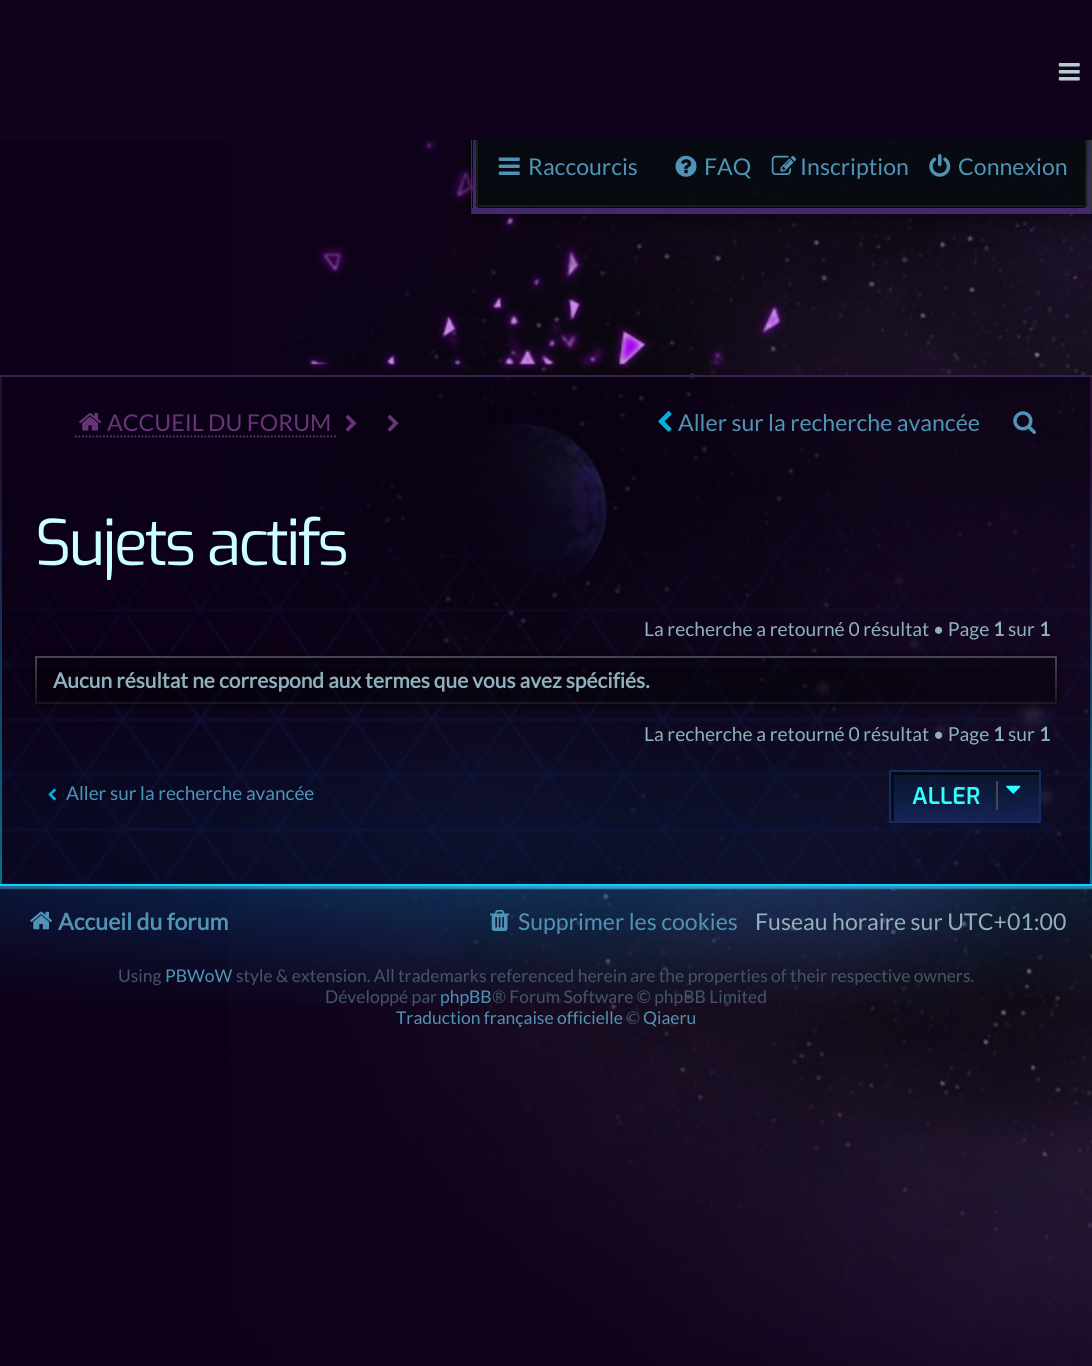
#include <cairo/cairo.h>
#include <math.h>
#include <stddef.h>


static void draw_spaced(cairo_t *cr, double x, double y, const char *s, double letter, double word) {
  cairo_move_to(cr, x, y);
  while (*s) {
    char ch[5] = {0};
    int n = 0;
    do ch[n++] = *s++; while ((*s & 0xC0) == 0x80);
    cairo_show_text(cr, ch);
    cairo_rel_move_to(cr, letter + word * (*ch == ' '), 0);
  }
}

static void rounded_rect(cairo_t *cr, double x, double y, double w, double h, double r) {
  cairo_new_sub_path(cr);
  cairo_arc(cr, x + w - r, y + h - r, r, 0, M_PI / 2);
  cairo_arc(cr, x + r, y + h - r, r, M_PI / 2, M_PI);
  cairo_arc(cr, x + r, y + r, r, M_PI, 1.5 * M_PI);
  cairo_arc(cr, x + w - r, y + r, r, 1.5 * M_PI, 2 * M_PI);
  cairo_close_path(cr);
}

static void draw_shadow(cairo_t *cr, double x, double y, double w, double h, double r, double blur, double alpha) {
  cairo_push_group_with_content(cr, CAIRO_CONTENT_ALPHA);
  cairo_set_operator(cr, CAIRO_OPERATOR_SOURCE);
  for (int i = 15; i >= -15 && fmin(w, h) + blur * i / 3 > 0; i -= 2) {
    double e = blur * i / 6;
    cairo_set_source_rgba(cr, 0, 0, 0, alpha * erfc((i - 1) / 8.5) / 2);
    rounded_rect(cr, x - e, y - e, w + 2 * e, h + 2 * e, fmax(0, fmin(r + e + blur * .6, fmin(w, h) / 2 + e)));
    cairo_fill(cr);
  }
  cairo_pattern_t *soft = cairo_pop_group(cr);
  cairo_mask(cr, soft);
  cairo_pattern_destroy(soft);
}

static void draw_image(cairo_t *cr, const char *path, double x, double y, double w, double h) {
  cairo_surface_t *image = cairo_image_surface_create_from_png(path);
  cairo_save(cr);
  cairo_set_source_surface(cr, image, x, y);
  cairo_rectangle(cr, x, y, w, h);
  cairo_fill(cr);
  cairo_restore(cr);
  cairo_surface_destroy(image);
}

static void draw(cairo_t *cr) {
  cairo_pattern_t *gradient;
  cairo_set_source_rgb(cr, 13 / 255.0, 1 / 255.0, 25 / 255.0);
  cairo_paint(cr);
  draw_image(cr, "images/1.png", 229, 140, 863, 1226);
  draw_image(cr, "images/3.png", 305, 140, 481, 231);
  cairo_save(cr);
  cairo_set_fill_rule(cr, CAIRO_FILL_RULE_EVEN_ODD);
  cairo_new_path(cr);
  cairo_move_to(cr, 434, 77);
  cairo_line_to(cr, 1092, 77);
  cairo_line_to(cr, 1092, 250);
  cairo_line_to(cr, 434, 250);
  cairo_close_path(cr);
  cairo_move_to(cr, 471, 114);
  cairo_line_to(cr, 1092, 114);
  cairo_line_to(cr, 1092, 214);
  cairo_line_to(cr, 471, 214);
  cairo_close_path(cr);
  cairo_clip(cr);
  cairo_set_source_rgb(cr, 0, 0, 0);
  draw_shadow(cr, 467, 110, 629, 107, 0, 10.5, 0.6);
  cairo_restore(cr);
  cairo_set_source_rgb(cr, 54 / 255.0, 54 / 255.0, 54 / 255.0);
  cairo_new_path(cr);
  cairo_move_to(cr, 1092, 114);
  cairo_line_to(cr, 1092, 214);
  cairo_line_to(cr, 1090, 208);
  cairo_line_to(cr, 1090, 116);
  cairo_close_path(cr);
  cairo_fill(cr);
  cairo_set_source_rgb(cr, 67 / 255.0, 40 / 255.0, 107 / 255.0);
  cairo_new_path(cr);
  cairo_move_to(cr, 1092, 214);
  cairo_line_to(cr, 471, 214);
  cairo_line_to(cr, 472, 208);
  cairo_line_to(cr, 1090, 208);
  cairo_close_path(cr);
  cairo_fill(cr);
  cairo_set_source_rgb(cr, 54 / 255.0, 54 / 255.0, 54 / 255.0);
  cairo_new_path(cr);
  cairo_move_to(cr, 471, 214);
  cairo_line_to(cr, 471, 114);
  cairo_line_to(cr, 472, 116);
  cairo_line_to(cr, 472, 208);
  cairo_close_path(cr);
  cairo_fill(cr);
  cairo_set_source_rgba(cr, 6 / 255.0, 11 / 255.0, 16 / 255.0, 0.9);
  cairo_rectangle(cr, 478, 140, 607, 68);
  cairo_fill(cr);
  gradient = cairo_pattern_create_linear(475, 116, 475, 208);
  cairo_pattern_add_color_stop_rgba(gradient, 0, 20 / 255.0, 50 / 255.0, 78 / 255.0, 1);
  cairo_pattern_add_color_stop_rgba(gradient, 1, 67 / 255.0, 40 / 255.0, 107 / 255.0, 1);
  cairo_set_source(cr, gradient);
  cairo_pattern_destroy(gradient);
  cairo_rectangle(cr, 473, 140, 5, 68);
  cairo_fill(cr);
  gradient = cairo_pattern_create_linear(1088, 116, 1088, 208);
  cairo_pattern_add_color_stop_rgba(gradient, 0, 20 / 255.0, 50 / 255.0, 78 / 255.0, 1);
  cairo_pattern_add_color_stop_rgba(gradient, 1, 67 / 255.0, 40 / 255.0, 107 / 255.0, 1);
  cairo_set_source(cr, gradient);
  cairo_pattern_destroy(gradient);
  cairo_rectangle(cr, 1085, 140, 5, 68);
  cairo_fill(cr);
  cairo_rectangle(cr, 477, 118, 609, 88);
  cairo_set_source_rgb(cr, 26 / 255.0, 26 / 255.0, 26 / 255.0);
  cairo_stroke(cr);
  cairo_set_source_rgb(cr, 16 / 255.0, 2 / 255.0, 27 / 255.0);
  cairo_rectangle(cr, 0, 0, 1092, 140);
  cairo_fill(cr);
  draw_image(cr, "images/2.png", 1058, 63, 22, 18);
  draw_image(cr, "images/4.png", 498, 157, 22, 18);
  draw_image(cr, "images/5.png", 675, 155, 22, 22);
  draw_image(cr, "images/6.png", 771, 155, 26, 20);
  draw_image(cr, "images/7.png", 929, 154, 22, 23);
  cairo_set_source_rgba(cr, 11 / 255.0, 1 / 255.0, 22 / 255.0, 0.7);
  cairo_rectangle(cr, 229, 377, 863, 92);
  cairo_fill(cr);
  cairo_set_source_rgb(cr, 35 / 255.0, 16 / 255.0, 50 / 255.0);
  cairo_rectangle(cr, 0, 376, 2, 93);
  cairo_fill(cr);
  cairo_set_source_rgba(cr, 59 / 255.0, 31 / 255.0, 78 / 255.0, 0.5);
  cairo_rectangle(cr, 1090, 376, 2, 93);
  cairo_fill(cr);
  cairo_set_source_rgb(cr, 59 / 255.0, 31 / 255.0, 78 / 255.0);
  cairo_rectangle(cr, 0, 375, 1092, 2);
  cairo_fill(cr);
  draw_image(cr, "images/8.png", 79, 413, 23, 18);
  cairo_save(cr);
  cairo_rectangle(cr, 70, 394, 266, 56);
  cairo_clip(cr);
  cairo_new_path(cr);
  cairo_move_to(cr, 75, 436.5);
  cairo_line_to(cr, 341, 436.5);
  cairo_set_source_rgb(cr, 101 / 255.0, 53 / 255.0, 118 / 255.0);
  cairo_set_line_width(cr, 1.8);
  cairo_set_dash(cr, (double[]){1.75, 1.75}, 2, 0);
  cairo_stroke(cr);
  cairo_restore(cr);
  draw_image(cr, "images/9.png", 345, 415, 12, 17);
  draw_image(cr, "images/10.png", 387, 415, 12, 17);
  draw_image(cr, "images/11.png", 658, 411, 14, 21);
  draw_image(cr, "images/12.png", 1013, 411, 23, 23);
  draw_image(cr, "images/13.png", 0, 469, 1092, 533);
  cairo_set_source_rgba(cr, 11 / 255.0, 1 / 255.0, 22 / 255.0, 0.7);
  cairo_rectangle(cr, 0, 469, 1092, 415);
  cairo_fill(cr);
  gradient = cairo_pattern_create_linear(0.9, 469, 0.9, 884);
  cairo_pattern_add_color_stop_rgba(gradient, 0, 59 / 255.0, 31 / 255.0, 78 / 255.0, 0.5);
  cairo_pattern_add_color_stop_rgba(gradient, 1, 0, 216 / 255.0, 1, 0.5);
  cairo_set_source(cr, gradient);
  cairo_pattern_destroy(gradient);
  cairo_rectangle(cr, 0, 469, 2, 415);
  cairo_fill(cr);
  gradient = cairo_pattern_create_linear(1091, 469, 1091, 884);
  cairo_pattern_add_color_stop_rgba(gradient, 0, 59 / 255.0, 31 / 255.0, 78 / 255.0, 0.5);
  cairo_pattern_add_color_stop_rgba(gradient, 1, 0, 216 / 255.0, 1, 0.5);
  cairo_set_source(cr, gradient);
  cairo_pattern_destroy(gradient);
  cairo_rectangle(cr, 1090, 469, 2, 415);
  cairo_fill(cr);
  cairo_set_source_rgb(cr, 0, 216 / 255.0, 1);
  cairo_rectangle(cr, 0, 884, 1092, 2);
  cairo_fill(cr);
  cairo_save(cr);
  cairo_set_fill_rule(cr, CAIRO_FILL_RULE_EVEN_ODD);
  cairo_new_path(cr);
  cairo_move_to(cr, 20, 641);
  cairo_line_to(cr, 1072, 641);
  cairo_line_to(cr, 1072, 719);
  cairo_line_to(cr, 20, 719);
  cairo_close_path(cr);
  cairo_move_to(cr, 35, 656);
  cairo_line_to(cr, 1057, 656);
  cairo_line_to(cr, 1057, 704);
  cairo_line_to(cr, 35, 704);
  cairo_close_path(cr);
  cairo_clip(cr);
  cairo_set_source_rgb(cr, 0, 0, 0);
  draw_shadow(cr, 35, 656, 1022, 48, 0, 4.5, 0.7);
  cairo_restore(cr);
  cairo_set_source_rgba(cr, 0, 0, 0, 0.4);
  cairo_rectangle(cr, 35, 656, 1022, 48);
  cairo_fill(cr);
  gradient = cairo_pattern_create_linear(1056, 658, 1056, 702);
  cairo_pattern_add_color_stop_rgba(gradient, 0, 161 / 255.0, 139 / 255.0, 175 / 255.0, 0.45);
  cairo_pattern_add_color_stop_rgba(gradient, 1, 161 / 255.0, 139 / 255.0, 175 / 255.0, 0.14);
  cairo_set_source(cr, gradient);
  cairo_pattern_destroy(gradient);
  cairo_rectangle(cr, 1055, 658, 2, 44);
  cairo_fill(cr);
  gradient = cairo_pattern_create_linear(36, 658, 36, 702);
  cairo_pattern_add_color_stop_rgba(gradient, 0, 161 / 255.0, 139 / 255.0, 175 / 255.0, 0.45);
  cairo_pattern_add_color_stop_rgba(gradient, 1, 161 / 255.0, 139 / 255.0, 175 / 255.0, 0.14);
  cairo_set_source(cr, gradient);
  cairo_pattern_destroy(gradient);
  cairo_rectangle(cr, 35, 658, 2, 44);
  cairo_fill(cr);
  cairo_set_source_rgba(cr, 161 / 255.0, 139 / 255.0, 175 / 255.0, 0.45);
  cairo_rectangle(cr, 35, 656, 1022, 2);
  cairo_fill(cr);
  cairo_set_source_rgba(cr, 161 / 255.0, 139 / 255.0, 175 / 255.0, 0.14);
  cairo_rectangle(cr, 35, 702, 1022, 2);
  cairo_fill(cr);
  draw_image(cr, "images/14.png", 48, 788, 9, 13);
  gradient = cairo_pattern_create_linear(965, 772, 965, 821);
  cairo_pattern_add_color_stop_rgba(gradient, 0, 8 / 255.0, 28 / 255.0, 52 / 255.0, 0.5);
  cairo_pattern_add_color_stop_rgba(gradient, 0.5, 7 / 255.0, 45 / 255.0, 87 / 255.0, 0.5);
  cairo_pattern_add_color_stop_rgba(gradient, 1, 34 / 255.0, 54 / 255.0, 127 / 255.0, 0.5);
  cairo_set_source(cr, gradient);
  cairo_pattern_destroy(gradient);
  cairo_rectangle(cr, 891, 772, 148, 49);
  cairo_fill(cr);
  cairo_save(cr);
  cairo_rectangle(cr, 891, 772, 149, 49);
  cairo_clip(cr);
  cairo_set_source_rgba(cr, 0, 0, 0, 0.6);
  cairo_set_fill_rule(cr, CAIRO_FILL_RULE_EVEN_ODD);
  cairo_new_path(cr);
  cairo_move_to(cr, 718, 598);
  cairo_line_to(cr, 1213, 598);
  cairo_line_to(cr, 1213, 994);
  cairo_line_to(cr, 718, 994);
  cairo_close_path(cr);
  cairo_move_to(cr, 894, 775);
  cairo_line_to(cr, 1040, 775);
  cairo_line_to(cr, 1040, 821);
  cairo_line_to(cr, 894, 821);
  cairo_close_path(cr);
  cairo_fill(cr);
  cairo_restore(cr);
  cairo_rectangle(cr, 890, 771, 150, 51);
  cairo_set_source_rgb(cr, 17 / 255.0, 46 / 255.0, 98 / 255.0);
  cairo_stroke(cr);
  cairo_set_source_rgb(cr, 73 / 255.0, 73 / 255.0, 73 / 255.0);
  cairo_rectangle(cr, 996, 781, 2, 29);
  cairo_fill(cr);
  draw_image(cr, "images/15.png", 1006, 785, 15, 9);
  draw_image(cr, "images/16.png", 30, 911, 23, 19);
  draw_image(cr, "images/17.png", 490, 910, 20, 21);
  cairo_select_font_face(cr, "Lato", CAIRO_FONT_SLANT_NORMAL, CAIRO_FONT_WEIGHT_NORMAL);
  cairo_set_font_size(cr, 23.1);
  cairo_set_source_rgb(cr, 79 / 255.0, 147 / 255.0, 182 / 255.0);
  cairo_move_to(cr, 528, 175);
  cairo_show_text(cr, "Raccourcis");
  cairo_move_to(cr, 704, 175);
  cairo_show_text(cr, "FAQ");
  cairo_move_to(cr, 800, 175);
  cairo_show_text(cr, "Inscription");
  cairo_move_to(cr, 958, 175);
  cairo_show_text(cr, "Connexion");
  cairo_set_source_rgb(cr, 101 / 255.0, 53 / 255.0, 118 / 255.0);
  cairo_move_to(cr, 107, 431);
  cairo_show_text(cr, "ACCUEIL DU FORUM");
  cairo_set_source_rgb(cr, 79 / 255.0, 147 / 255.0, 182 / 255.0);
  cairo_move_to(cr, 678, 431);
  cairo_show_text(cr, "Aller sur la recherche avancée");
  cairo_select_font_face(cr, "Exo", CAIRO_FONT_SLANT_NORMAL, CAIRO_FONT_WEIGHT_NORMAL);
  cairo_set_font_size(cr, 63);
  cairo_set_source_rgb(cr, 204 / 255.0, 1, 1);
  draw_spaced(cr, 35, 565, "Sujets actifs", -3.1, 0);
  cairo_select_font_face(cr, "Lato", CAIRO_FONT_SLANT_NORMAL, CAIRO_FONT_WEIGHT_NORMAL);
  cairo_set_font_size(cr, 19.25);
  cairo_set_source_rgb(cr, 142 / 255.0, 177 / 255.0, 188 / 255.0);
  cairo_move_to(cr, 644, 636);
  cairo_show_text(cr, "La recherche a retourné 0 résultat • Page");
  cairo_select_font_face(cr, "Lato", CAIRO_FONT_SLANT_NORMAL, CAIRO_FONT_WEIGHT_BOLD);
  cairo_move_to(cr, 993, 636);
  cairo_show_text(cr, "1");
  cairo_select_font_face(cr, "Lato", CAIRO_FONT_SLANT_NORMAL, CAIRO_FONT_WEIGHT_NORMAL);
  cairo_move_to(cr, 1008, 636);
  cairo_show_text(cr, "sur");
  cairo_select_font_face(cr, "Lato", CAIRO_FONT_SLANT_NORMAL, CAIRO_FONT_WEIGHT_BOLD);
  cairo_move_to(cr, 1039, 636);
  cairo_show_text(cr, "1");
  cairo_set_font_size(cr, 21);
  cairo_move_to(cr, 53, 688);
  cairo_show_text(cr, "Aucun résultat ne correspond aux termes que vous avez spécifiés.");
  cairo_select_font_face(cr, "Lato", CAIRO_FONT_SLANT_NORMAL, CAIRO_FONT_WEIGHT_NORMAL);
  cairo_set_font_size(cr, 19.25);
  cairo_move_to(cr, 644, 741);
  cairo_show_text(cr, "La recherche a retourné 0 résultat • Page");
  cairo_select_font_face(cr, "Lato", CAIRO_FONT_SLANT_NORMAL, CAIRO_FONT_WEIGHT_BOLD);
  cairo_move_to(cr, 993, 741);
  cairo_show_text(cr, "1");
  cairo_select_font_face(cr, "Lato", CAIRO_FONT_SLANT_NORMAL, CAIRO_FONT_WEIGHT_NORMAL);
  cairo_move_to(cr, 1008, 741);
  cairo_show_text(cr, "sur");
  cairo_select_font_face(cr, "Lato", CAIRO_FONT_SLANT_NORMAL, CAIRO_FONT_WEIGHT_BOLD);
  cairo_move_to(cr, 1039, 741);
  cairo_show_text(cr, "1");
  cairo_select_font_face(cr, "Lato", CAIRO_FONT_SLANT_NORMAL, CAIRO_FONT_WEIGHT_NORMAL);
  cairo_set_font_size(cr, 19);
  cairo_set_source_rgb(cr, 79 / 255.0, 147 / 255.0, 182 / 255.0);
  cairo_move_to(cr, 66, 800);
  cairo_show_text(cr, "Aller sur la recherche avancée");
  cairo_select_font_face(cr, "Exo SemiBold", CAIRO_FONT_SLANT_NORMAL, CAIRO_FONT_WEIGHT_NORMAL);
  cairo_set_font_size(cr, 23);
  cairo_set_source_rgb(cr, 52 / 255.0, 1, 1);
  cairo_move_to(cr, 912, 804);
  cairo_show_text(cr, "ALLER");
  cairo_select_font_face(cr, "Lato", CAIRO_FONT_SLANT_NORMAL, CAIRO_FONT_WEIGHT_BOLD);
  cairo_set_font_size(cr, 23.1);
  cairo_set_source_rgb(cr, 79 / 255.0, 147 / 255.0, 182 / 255.0);
  cairo_move_to(cr, 58, 930);
  cairo_show_text(cr, "Accueil du forum");
  cairo_select_font_face(cr, "Lato", CAIRO_FONT_SLANT_NORMAL, CAIRO_FONT_WEIGHT_NORMAL);
  cairo_move_to(cr, 518, 930);
  cairo_show_text(cr, "Supprimer les cookies");
  cairo_set_source_rgb(cr, 142 / 255.0, 177 / 255.0, 188 / 255.0);
  cairo_move_to(cr, 755, 930);
  cairo_show_text(cr, "Fuseau horaire sur UTC+01:00");
  cairo_set_font_size(cr, 17.5);
  cairo_set_source_rgb(cr, 68 / 255.0, 85 / 255.0, 102 / 255.0);
  cairo_move_to(cr, 118, 982);
  cairo_show_text(cr, "Using");
  cairo_set_source_rgb(cr, 79 / 255.0, 147 / 255.0, 182 / 255.0);
  cairo_move_to(cr, 165, 982);
  cairo_show_text(cr, "PBWoW");
  cairo_set_source_rgb(cr, 68 / 255.0, 85 / 255.0, 102 / 255.0);
  cairo_move_to(cr, 236, 982);
  cairo_show_text(cr, "style & extension. All trademarks referenced herein are the properties of their respective owners.");
  cairo_move_to(cr, 325, 1003);
  cairo_show_text(cr, "Développé par");
  cairo_set_source_rgb(cr, 79 / 255.0, 147 / 255.0, 182 / 255.0);
  cairo_move_to(cr, 440, 1003);
  cairo_show_text(cr, "phpBB");
  cairo_set_source_rgb(cr, 68 / 255.0, 85 / 255.0, 102 / 255.0);
  cairo_move_to(cr, 492, 1003);
  cairo_show_text(cr, "® Forum Software © phpBB Limited");
  cairo_set_source_rgb(cr, 79 / 255.0, 147 / 255.0, 182 / 255.0);
  cairo_move_to(cr, 396, 1024);
  cairo_show_text(cr, "Traduction française officielle");
  cairo_set_source_rgb(cr, 68 / 255.0, 85 / 255.0, 102 / 255.0);
  cairo_move_to(cr, 626, 1024);
  cairo_show_text(cr, "©");
  cairo_set_source_rgb(cr, 79 / 255.0, 147 / 255.0, 182 / 255.0);
  cairo_move_to(cr, 643, 1024);
  cairo_show_text(cr, "Qiaeru");
}

int main(void) {
  cairo_surface_t *surface = cairo_image_surface_create(CAIRO_FORMAT_RGB24, 1092, 1366);
  cairo_t *cr = cairo_create(surface);
  cairo_font_options_t *options = cairo_font_options_create();
  cairo_font_options_set_hint_metrics(options, CAIRO_HINT_METRICS_OFF);
  cairo_font_options_set_hint_style(options, CAIRO_HINT_STYLE_NONE);
  cairo_set_font_options(cr, options);
  cairo_set_miter_limit(cr, 4);
  draw(cr);
  cairo_surface_write_to_png(surface, "out.png");
  cairo_font_options_destroy(options);
  cairo_destroy(cr);
  cairo_surface_destroy(surface);
  return 0;
}
